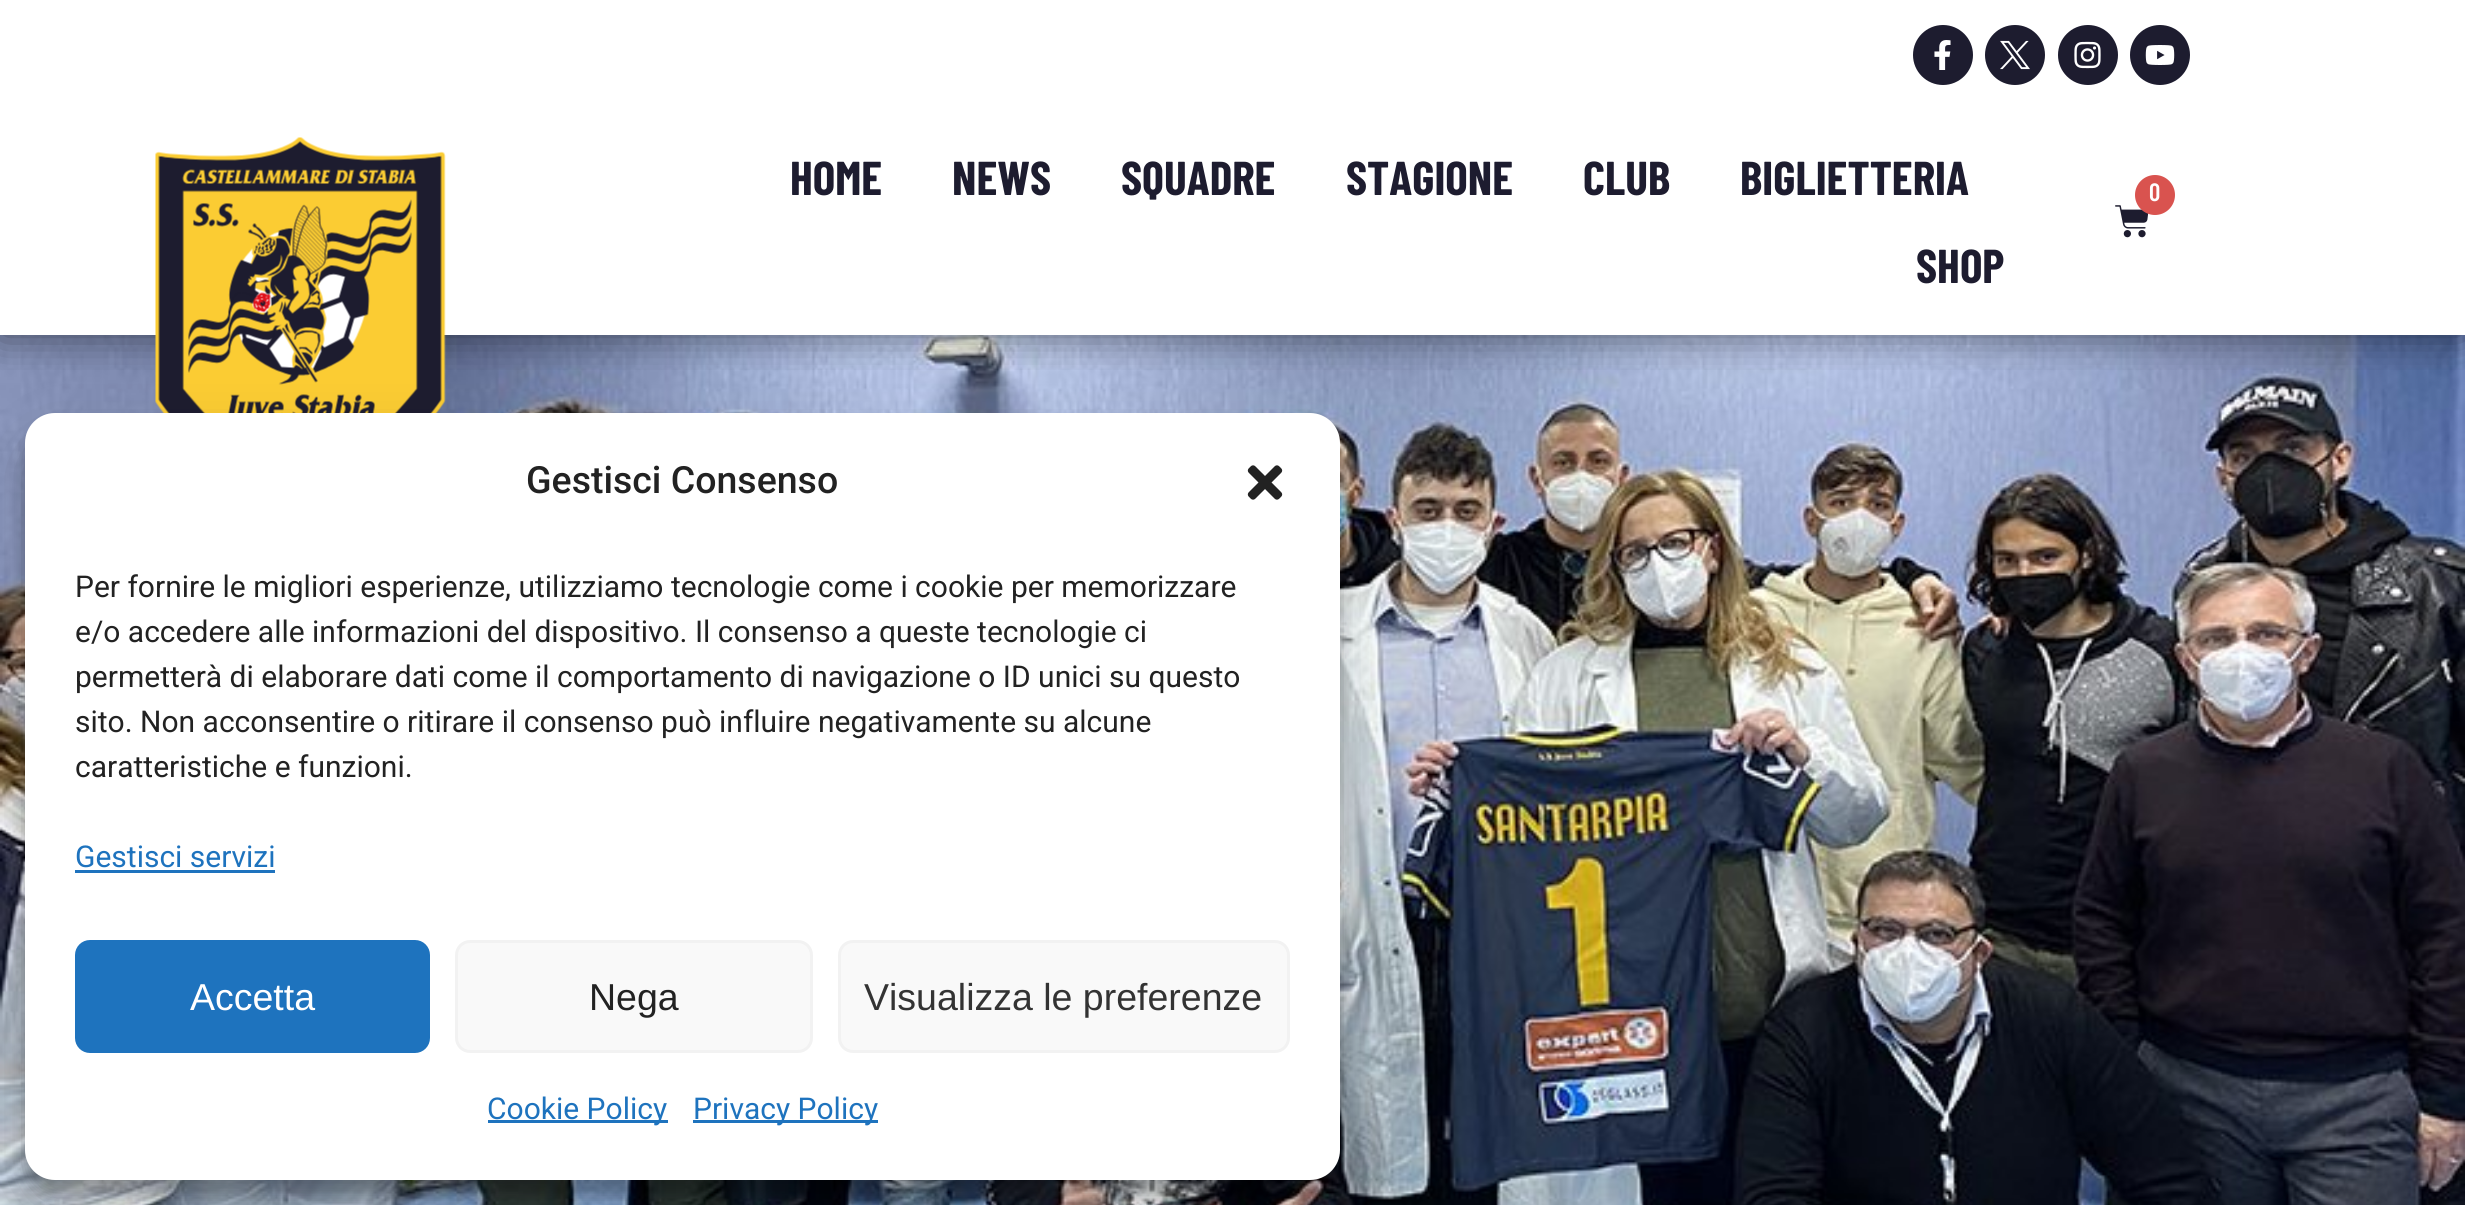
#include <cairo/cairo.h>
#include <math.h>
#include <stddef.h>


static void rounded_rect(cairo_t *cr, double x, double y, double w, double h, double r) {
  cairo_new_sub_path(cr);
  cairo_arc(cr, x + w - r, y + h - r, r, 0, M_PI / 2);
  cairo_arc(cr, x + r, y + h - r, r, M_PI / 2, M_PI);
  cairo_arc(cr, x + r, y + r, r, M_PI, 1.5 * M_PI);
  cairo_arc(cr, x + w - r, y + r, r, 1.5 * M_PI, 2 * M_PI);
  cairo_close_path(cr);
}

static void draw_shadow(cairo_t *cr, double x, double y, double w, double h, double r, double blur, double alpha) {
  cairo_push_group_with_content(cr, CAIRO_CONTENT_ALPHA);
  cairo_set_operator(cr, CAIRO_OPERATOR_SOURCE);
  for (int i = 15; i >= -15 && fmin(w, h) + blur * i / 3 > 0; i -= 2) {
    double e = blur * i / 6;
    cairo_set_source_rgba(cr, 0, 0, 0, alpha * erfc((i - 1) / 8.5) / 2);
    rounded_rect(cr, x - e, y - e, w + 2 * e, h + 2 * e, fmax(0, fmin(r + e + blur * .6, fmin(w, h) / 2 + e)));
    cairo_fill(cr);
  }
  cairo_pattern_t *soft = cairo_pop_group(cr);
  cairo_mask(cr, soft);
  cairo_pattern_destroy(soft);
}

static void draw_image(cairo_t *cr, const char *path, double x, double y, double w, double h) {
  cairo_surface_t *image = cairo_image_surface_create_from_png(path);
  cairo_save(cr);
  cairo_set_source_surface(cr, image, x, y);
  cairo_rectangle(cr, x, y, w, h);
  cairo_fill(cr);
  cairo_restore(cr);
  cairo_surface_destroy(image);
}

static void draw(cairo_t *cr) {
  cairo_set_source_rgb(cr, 1, 1, 1);
  cairo_paint(cr);
  draw_image(cr, "images/7.png", 0, 335, 2465, 870);
  cairo_save(cr);
  cairo_rectangle(cr, 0, 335, 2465, 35);
  cairo_clip(cr);
  cairo_set_source_rgb(cr, 0, 0, 0);
  draw_shadow(cr, 0, 0, 2465, 335, 0, 20, 0.5);
  cairo_restore(cr);
  cairo_set_source_rgb(cr, 29 / 255.0, 28 / 255.0, 47 / 255.0);
  cairo_arc(cr, 1943, 55, 30, 0, 2 * M_PI);
  cairo_fill(cr);
  draw_image(cr, "images/1.png", 1934, 40, 17, 30);
  cairo_arc(cr, 2015, 55, 30, 0, 2 * M_PI);
  cairo_fill(cr);
  draw_image(cr, "images/2.png", 2000, 40, 30, 30);
  cairo_arc(cr, 2088, 55, 30, 0, 2 * M_PI);
  cairo_fill(cr);
  draw_image(cr, "images/3.png", 2074, 41, 27, 28);
  cairo_arc(cr, 2160, 55, 30, 0, 2 * M_PI);
  cairo_fill(cr);
  draw_image(cr, "images/4.png", 2145, 45, 30, 20);
  draw_image(cr, "images/5.png", 155, 137, 291, 276);
  draw_image(cr, "images/6.png", 2115, 205, 34, 33);
  cairo_set_source_rgb(cr, 217 / 255.0, 83 / 255.0, 79 / 255.0);
  cairo_arc(cr, 2155, 195, 20, 0, 2 * M_PI);
  cairo_fill(cr);
  cairo_set_source_rgb(cr, 0, 0, 0);
  draw_shadow(cr, 25, 428, 1315, 767, 30, 7.5, 0.23);
  draw_shadow(cr, 25, 438, 1315, 767, 30, 25, 0.19);
  cairo_set_source_rgb(cr, 1, 1, 1);
  rounded_rect(cr, 25, 413, 1315, 767, 30);
  cairo_fill(cr);
  draw_image(cr, "images/8.png", 1247, 465, 36, 35);
  cairo_set_source_rgb(cr, 30 / 255.0, 115 / 255.0, 190 / 255.0);
  cairo_rectangle(cr, 75, 870, 200, 3);
  cairo_fill(cr);
  rounded_rect(cr, 76.5, 941.5, 352, 110, 13.5);
  cairo_fill_preserve(cr);
  cairo_set_line_width(cr, 3);
  cairo_stroke(cr);
  cairo_set_source_rgb(cr, 249 / 255.0, 249 / 255.0, 249 / 255.0);
  rounded_rect(cr, 456.5, 941.5, 355, 110, 13.5);
  cairo_fill_preserve(cr);
  cairo_set_source_rgb(cr, 242 / 255.0, 242 / 255.0, 242 / 255.0);
  cairo_stroke(cr);
  cairo_set_source_rgb(cr, 249 / 255.0, 249 / 255.0, 249 / 255.0);
  rounded_rect(cr, 839.5, 941.5, 449, 110, 13.5);
  cairo_fill_preserve(cr);
  cairo_set_source_rgb(cr, 242 / 255.0, 242 / 255.0, 242 / 255.0);
  cairo_stroke(cr);
  cairo_set_source_rgb(cr, 30 / 255.0, 115 / 255.0, 190 / 255.0);
  cairo_rectangle(cr, 488, 1120, 180, 3);
  cairo_fill(cr);
  cairo_rectangle(cr, 693, 1120, 185, 3);
  cairo_fill(cr);
  cairo_select_font_face(cr, "Barlow Condensed", CAIRO_FONT_SLANT_NORMAL, CAIRO_FONT_WEIGHT_BOLD);
  cairo_set_font_size(cr, 47.5);
  cairo_set_source_rgb(cr, 29 / 255.0, 28 / 255.0, 47 / 255.0);
  cairo_move_to(cr, 790, 195);
  cairo_show_text(cr, "HOME");
  cairo_move_to(cr, 952, 195);
  cairo_show_text(cr, "NEWS");
  cairo_move_to(cr, 1121, 195);
  cairo_show_text(cr, "SQUADRE");
  cairo_move_to(cr, 1346, 195);
  cairo_show_text(cr, "STAGIONE");
  cairo_move_to(cr, 1583, 195);
  cairo_show_text(cr, "CLUB");
  cairo_move_to(cr, 1740, 195);
  cairo_show_text(cr, "BIGLIETTERIA");
  cairo_move_to(cr, 1916, 283);
  cairo_show_text(cr, "SHOP");
  cairo_select_font_face(cr, "Barlow Condensed SemiBold", CAIRO_FONT_SLANT_NORMAL, CAIRO_FONT_WEIGHT_NORMAL);
  cairo_set_font_size(cr, 25);
  cairo_set_source_rgb(cr, 1, 1, 1);
  cairo_move_to(cr, 2149, 201);
  cairo_show_text(cr, "0");
  cairo_select_font_face(cr, "Roboto Medium", CAIRO_FONT_SLANT_NORMAL, CAIRO_FONT_WEIGHT_NORMAL);
  cairo_set_font_size(cr, 37.5);
  cairo_set_source_rgb(cr, 34 / 255.0, 34 / 255.0, 34 / 255.0);
  cairo_move_to(cr, 526, 493);
  cairo_show_text(cr, "Gestisci Consenso");
  cairo_select_font_face(cr, "Roboto", CAIRO_FONT_SLANT_NORMAL, CAIRO_FONT_WEIGHT_NORMAL);
  cairo_set_font_size(cr, 30);
  cairo_move_to(cr, 75, 597);
  cairo_show_text(cr, "Per fornire le migliori esperienze, utilizziamo tecnologie come i cookie per memorizzare");
  cairo_move_to(cr, 75, 642);
  cairo_show_text(cr, "e/o accedere alle informazioni del dispositivo. Il consenso a queste tecnologie ci");
  cairo_move_to(cr, 75, 687);
  cairo_show_text(cr, "permetterà di elaborare dati come il comportamento di navigazione o ID unici su questo");
  cairo_move_to(cr, 75, 732);
  cairo_show_text(cr, "sito. Non acconsentire o ritirare il consenso può influire negativamente su alcune");
  cairo_move_to(cr, 75, 777);
  cairo_show_text(cr, "caratteristiche e funzioni.");
  cairo_set_source_rgb(cr, 30 / 255.0, 115 / 255.0, 190 / 255.0);
  cairo_move_to(cr, 75, 867);
  cairo_show_text(cr, "Gestisci servizi");
  cairo_select_font_face(cr, "Liberation Sans", CAIRO_FONT_SLANT_NORMAL, CAIRO_FONT_WEIGHT_NORMAL);
  cairo_set_font_size(cr, 37.5);
  cairo_set_source_rgb(cr, 1, 1, 1);
  cairo_move_to(cr, 190, 1010);
  cairo_show_text(cr, "Accetta");
  cairo_set_source_rgb(cr, 34 / 255.0, 34 / 255.0, 34 / 255.0);
  cairo_move_to(cr, 589, 1010);
  cairo_show_text(cr, "Nega");
  cairo_set_source_rgb(cr, 51 / 255.0, 51 / 255.0, 51 / 255.0);
  cairo_move_to(cr, 864, 1010);
  cairo_show_text(cr, "Visualizza le preferenze");
  cairo_select_font_face(cr, "Roboto", CAIRO_FONT_SLANT_NORMAL, CAIRO_FONT_WEIGHT_NORMAL);
  cairo_set_font_size(cr, 30);
  cairo_set_source_rgb(cr, 30 / 255.0, 115 / 255.0, 190 / 255.0);
  cairo_move_to(cr, 487, 1119);
  cairo_show_text(cr, "Cookie Policy");
  cairo_move_to(cr, 693, 1119);
  cairo_show_text(cr, "Privacy Policy");
}

int main(void) {
  cairo_surface_t *surface = cairo_image_surface_create(CAIRO_FORMAT_RGB24, 2465, 1205);
  cairo_t *cr = cairo_create(surface);
  cairo_font_options_t *options = cairo_font_options_create();
  cairo_font_options_set_hint_metrics(options, CAIRO_HINT_METRICS_OFF);
  cairo_font_options_set_hint_style(options, CAIRO_HINT_STYLE_NONE);
  cairo_set_font_options(cr, options);
  cairo_set_miter_limit(cr, 4);
  draw(cr);
  cairo_surface_write_to_png(surface, "out.png");
  cairo_font_options_destroy(options);
  cairo_destroy(cr);
  cairo_surface_destroy(surface);
  return 0;
}
